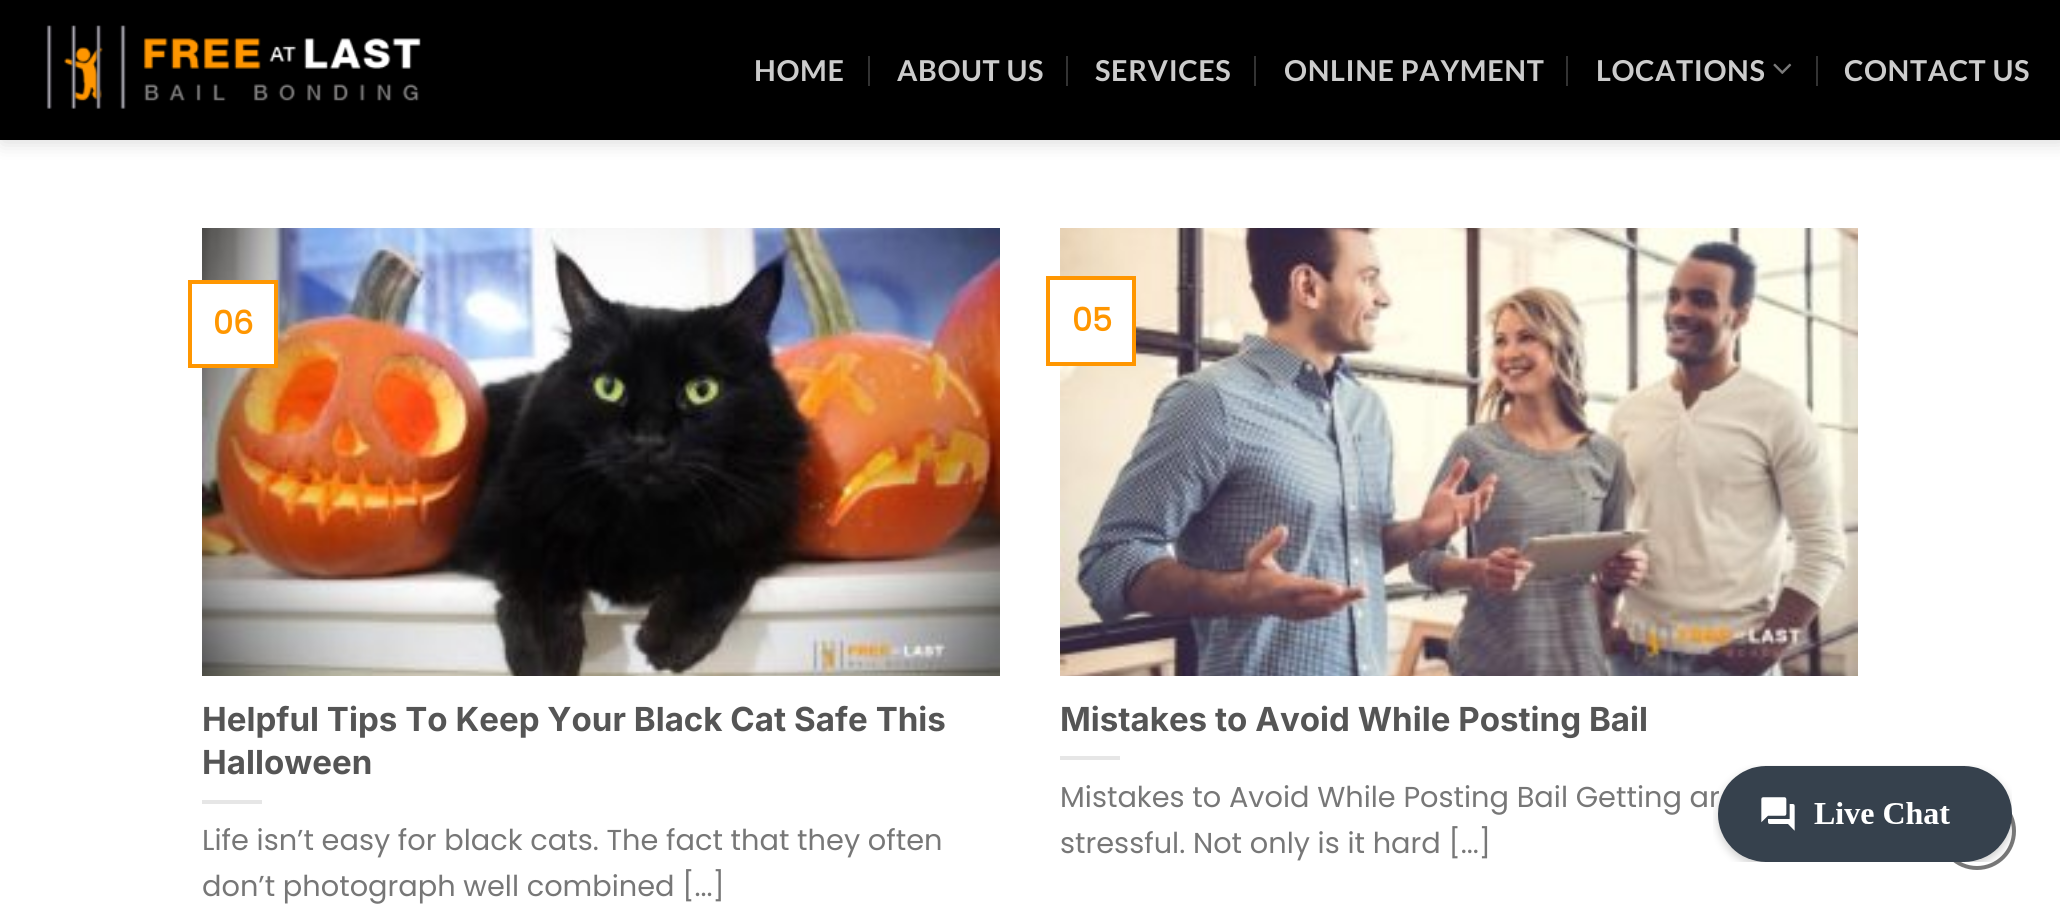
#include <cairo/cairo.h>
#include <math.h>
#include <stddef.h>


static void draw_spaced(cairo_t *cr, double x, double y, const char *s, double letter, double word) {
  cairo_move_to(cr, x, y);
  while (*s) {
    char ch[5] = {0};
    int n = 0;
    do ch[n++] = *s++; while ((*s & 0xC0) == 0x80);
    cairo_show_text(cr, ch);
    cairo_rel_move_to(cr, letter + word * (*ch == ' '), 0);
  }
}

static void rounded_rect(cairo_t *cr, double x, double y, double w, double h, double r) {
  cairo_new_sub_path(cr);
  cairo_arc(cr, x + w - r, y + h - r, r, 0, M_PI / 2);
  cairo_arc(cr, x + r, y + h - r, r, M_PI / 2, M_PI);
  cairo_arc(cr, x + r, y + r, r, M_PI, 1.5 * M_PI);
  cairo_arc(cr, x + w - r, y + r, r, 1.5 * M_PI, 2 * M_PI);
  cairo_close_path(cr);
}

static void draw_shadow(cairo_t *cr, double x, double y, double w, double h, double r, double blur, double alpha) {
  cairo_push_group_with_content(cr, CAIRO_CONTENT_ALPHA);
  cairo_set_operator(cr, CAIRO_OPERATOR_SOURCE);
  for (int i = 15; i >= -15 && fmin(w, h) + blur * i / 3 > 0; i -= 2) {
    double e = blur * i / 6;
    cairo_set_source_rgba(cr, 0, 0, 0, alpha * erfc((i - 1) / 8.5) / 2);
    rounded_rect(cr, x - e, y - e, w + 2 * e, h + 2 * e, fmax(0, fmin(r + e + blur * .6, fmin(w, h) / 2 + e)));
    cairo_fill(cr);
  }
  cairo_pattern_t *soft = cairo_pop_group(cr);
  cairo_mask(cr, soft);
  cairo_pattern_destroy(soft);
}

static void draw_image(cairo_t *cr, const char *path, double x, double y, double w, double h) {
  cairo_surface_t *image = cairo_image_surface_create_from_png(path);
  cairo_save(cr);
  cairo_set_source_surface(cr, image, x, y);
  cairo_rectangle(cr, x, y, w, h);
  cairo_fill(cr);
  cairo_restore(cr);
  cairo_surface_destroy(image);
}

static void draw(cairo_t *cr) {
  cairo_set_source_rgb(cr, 1, 1, 1);
  cairo_paint(cr);
  cairo_set_source_rgb(cr, 0, 0, 0);
  draw_shadow(cr, 2, 2, 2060, 140, 0, 10, 0.15);
  cairo_set_source_rgb(cr, 0, 0, 0);
  cairo_rectangle(cr, 0, 0, 2060, 140);
  cairo_fill(cr);
  draw_image(cr, "images/1.png", 46, 25, 375, 84);
  cairo_set_source_rgb(cr, 51 / 255.0, 51 / 255.0, 51 / 255.0);
  cairo_rectangle(cr, 868, 56, 2, 30);
  cairo_fill(cr);
  cairo_rectangle(cr, 1066, 56, 2, 30);
  cairo_fill(cr);
  cairo_rectangle(cr, 1254, 56, 2, 30);
  cairo_fill(cr);
  cairo_rectangle(cr, 1566, 56, 2, 30);
  cairo_fill(cr);
  draw_image(cr, "images/2.png", 1773, 63, 19, 11);
  cairo_rectangle(cr, 1816, 56, 2, 30);
  cairo_fill(cr);
  draw_image(cr, "images/3.png", 202, 228, 798, 448);
  cairo_set_source_rgb(cr, 1, 1, 1);
  cairo_rectangle(cr, 202, 284, 72, 80);
  cairo_fill(cr);
  cairo_rectangle(cr, 190, 282, 86, 84);
  cairo_set_source_rgb(cr, 1, 150 / 255.0, 0);
  cairo_set_line_width(cr, 4);
  cairo_stroke(cr);
  cairo_set_source_rgb(cr, 230 / 255.0, 230 / 255.0, 230 / 255.0);
  cairo_rectangle(cr, 202, 800, 60, 4);
  cairo_fill(cr);
  draw_image(cr, "images/4.png", 1060, 228, 798, 448);
  cairo_set_source_rgb(cr, 1, 1, 1);
  cairo_rectangle(cr, 1060, 280, 72, 82);
  cairo_fill(cr);
  cairo_rectangle(cr, 1048, 278, 86, 86);
  cairo_set_source_rgb(cr, 1, 150 / 255.0, 0);
  cairo_stroke(cr);
  cairo_set_source_rgb(cr, 230 / 255.0, 230 / 255.0, 230 / 255.0);
  cairo_rectangle(cr, 1060, 756, 60, 4);
  cairo_fill(cr);
  cairo_arc(cr, 1977, 831, 37, 0, 2 * M_PI);
  cairo_set_source_rgb(cr, 119 / 255.0, 119 / 255.0, 119 / 255.0);
  cairo_stroke(cr);
  cairo_select_font_face(cr, "Lato", CAIRO_FONT_SLANT_NORMAL, CAIRO_FONT_WEIGHT_BOLD);
  cairo_set_font_size(cr, 28.8);
  cairo_set_source_rgb(cr, 204 / 255.0, 204 / 255.0, 204 / 255.0);
  draw_spaced(cr, 754, 81, "HOME", 0.6, 0);
  draw_spaced(cr, 897, 81, "ABOUT US", 0.6, 0);
  draw_spaced(cr, 1095, 81, "SERVICES", 0.6, 0);
  draw_spaced(cr, 1284, 81, "ONLINE PAYMENT", 0.6, 0);
  draw_spaced(cr, 1596, 81, "LOCATIONS", 0.6, 0);
  draw_spaced(cr, 1844, 81, "CONTACT US", 0.6, 0);
  cairo_select_font_face(cr, "Poppins", CAIRO_FONT_SLANT_NORMAL, CAIRO_FONT_WEIGHT_BOLD);
  cairo_set_font_size(cr, 32);
  cairo_set_source_rgb(cr, 1, 150 / 255.0, 0);
  cairo_move_to(cr, 213, 334);
  cairo_show_text(cr, "06");
  cairo_select_font_face(cr, "Inter", CAIRO_FONT_SLANT_NORMAL, CAIRO_FONT_WEIGHT_BOLD);
  cairo_set_font_size(cr, 33.1);
  cairo_set_source_rgb(cr, 85 / 255.0, 85 / 255.0, 85 / 255.0);
  cairo_move_to(cr, 202, 731);
  cairo_show_text(cr, "Helpful Tips To Keep Your Black Cat Safe This");
  cairo_move_to(cr, 202, 774);
  cairo_show_text(cr, "Halloween");
  cairo_select_font_face(cr, "Poppins", CAIRO_FONT_SLANT_NORMAL, CAIRO_FONT_WEIGHT_NORMAL);
  cairo_set_font_size(cr, 28.8);
  cairo_set_source_rgb(cr, 119 / 255.0, 119 / 255.0, 119 / 255.0);
  cairo_move_to(cr, 202, 850);
  cairo_show_text(cr, "Life isn’t easy for black cats. The fact that they often");
  cairo_move_to(cr, 202, 896);
  cairo_show_text(cr, "don’t photograph well combined [...]");
  cairo_select_font_face(cr, "Poppins", CAIRO_FONT_SLANT_NORMAL, CAIRO_FONT_WEIGHT_BOLD);
  cairo_set_font_size(cr, 32);
  cairo_set_source_rgb(cr, 1, 150 / 255.0, 0);
  cairo_move_to(cr, 1072, 331);
  cairo_show_text(cr, "05");
  cairo_select_font_face(cr, "Inter", CAIRO_FONT_SLANT_NORMAL, CAIRO_FONT_WEIGHT_BOLD);
  cairo_set_font_size(cr, 33.1);
  cairo_set_source_rgb(cr, 85 / 255.0, 85 / 255.0, 85 / 255.0);
  cairo_move_to(cr, 1060, 731);
  cairo_show_text(cr, "Mistakes to Avoid While Posting Bail");
  cairo_select_font_face(cr, "Poppins", CAIRO_FONT_SLANT_NORMAL, CAIRO_FONT_WEIGHT_NORMAL);
  cairo_set_font_size(cr, 28.8);
  cairo_set_source_rgb(cr, 119 / 255.0, 119 / 255.0, 119 / 255.0);
  cairo_move_to(cr, 1060, 807);
  cairo_show_text(cr, "Mistakes to Avoid While Posting Bail Getting ar");
  cairo_move_to(cr, 1060, 853);
  cairo_show_text(cr, "stressful. Not only is it hard [...]");
  draw_image(cr, "images/5.png", 1713, 765, 299, 97);
}

int main(void) {
  cairo_surface_t *surface = cairo_image_surface_create(CAIRO_FORMAT_RGB24, 2060, 910);
  cairo_t *cr = cairo_create(surface);
  cairo_font_options_t *options = cairo_font_options_create();
  cairo_font_options_set_hint_metrics(options, CAIRO_HINT_METRICS_OFF);
  cairo_font_options_set_hint_style(options, CAIRO_HINT_STYLE_NONE);
  cairo_set_font_options(cr, options);
  cairo_set_miter_limit(cr, 4);
  draw(cr);
  cairo_surface_write_to_png(surface, "out.png");
  cairo_font_options_destroy(options);
  cairo_destroy(cr);
  cairo_surface_destroy(surface);
  return 0;
}
